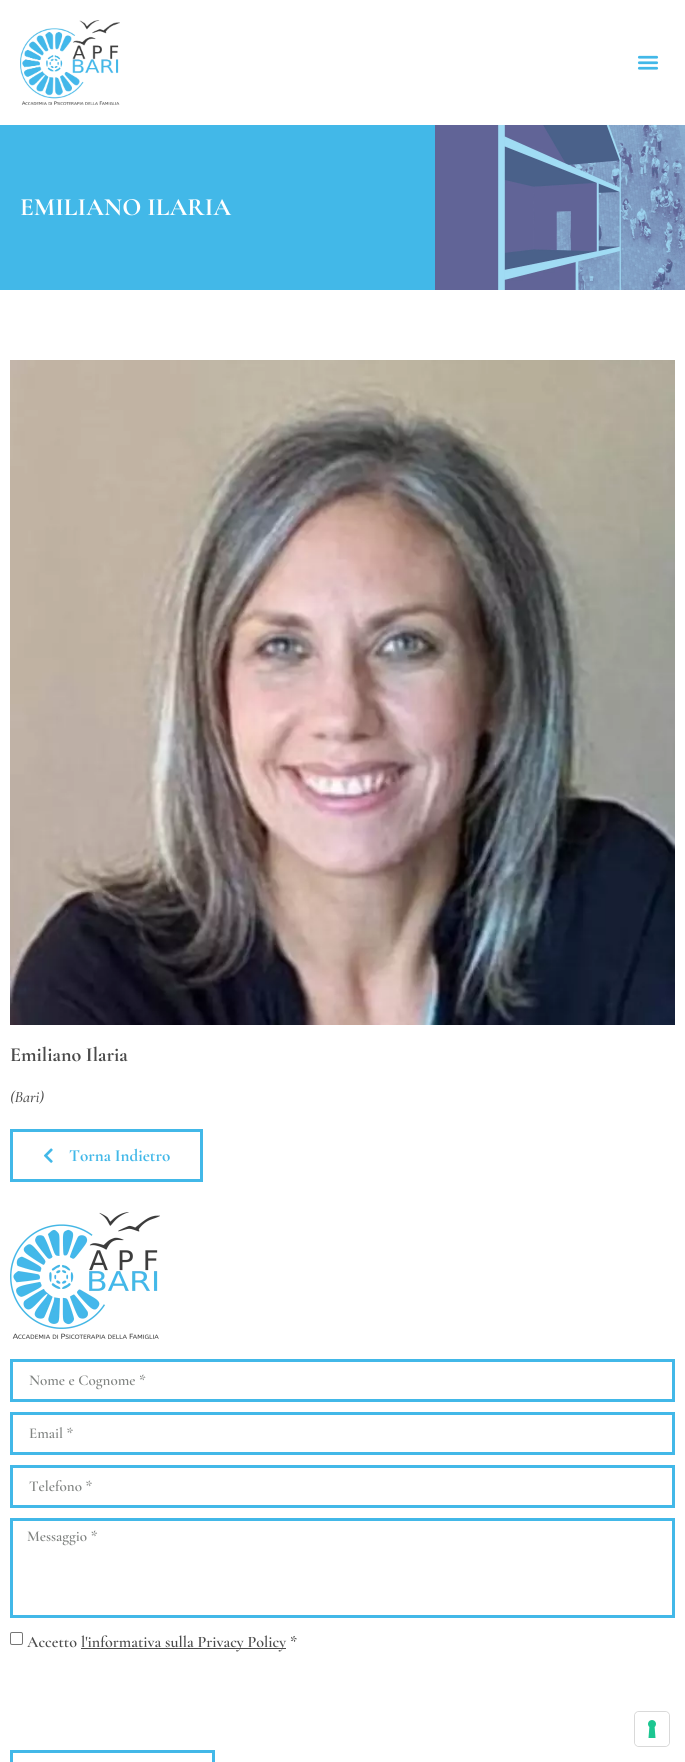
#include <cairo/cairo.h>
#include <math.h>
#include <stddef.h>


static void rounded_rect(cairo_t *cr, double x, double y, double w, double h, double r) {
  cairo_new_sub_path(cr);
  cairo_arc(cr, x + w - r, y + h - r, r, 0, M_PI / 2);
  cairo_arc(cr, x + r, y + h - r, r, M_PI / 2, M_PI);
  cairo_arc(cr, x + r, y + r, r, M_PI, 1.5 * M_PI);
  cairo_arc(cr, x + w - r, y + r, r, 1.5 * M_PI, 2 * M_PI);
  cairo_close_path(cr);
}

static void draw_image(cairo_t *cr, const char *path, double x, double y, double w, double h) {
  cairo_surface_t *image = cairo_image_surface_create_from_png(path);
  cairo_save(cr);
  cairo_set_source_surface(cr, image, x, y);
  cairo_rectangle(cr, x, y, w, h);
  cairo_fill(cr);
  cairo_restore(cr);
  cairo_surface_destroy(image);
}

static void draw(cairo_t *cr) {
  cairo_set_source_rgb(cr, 1, 1, 1);
  cairo_paint(cr);
  draw_image(cr, "images/1.png", 20, 20, 100, 85);
  draw_image(cr, "images/2.png", 637, 55, 22, 15);
  cairo_set_source_rgb(cr, 66 / 255.0, 184 / 255.0, 232 / 255.0);
  cairo_rectangle(cr, 0, 125, 435, 165);
  cairo_fill(cr);
  draw_image(cr, "images/3.png", 435, 125, 250, 165);
  draw_image(cr, "images/4.png", 10, 360, 665, 665);
  cairo_rectangle(cr, 11.5, 1130.5, 190, 50);
  cairo_set_line_width(cr, 3);
  cairo_stroke(cr);
  draw_image(cr, "images/5.png", 43, 1148, 10, 15);
  draw_image(cr, "images/6.png", 10, 1212, 150, 127);
  cairo_rectangle(cr, 11.5, 1360.5, 662, 40);
  cairo_stroke(cr);
  cairo_rectangle(cr, 11.5, 1413.5, 662, 40);
  cairo_stroke(cr);
  cairo_rectangle(cr, 11.5, 1466.5, 662, 40);
  cairo_stroke(cr);
  cairo_rectangle(cr, 11.5, 1519.5, 662, 97);
  cairo_stroke(cr);
  rounded_rect(cr, 10.5, 1632.5, 12, 12, 1.5);
  cairo_set_source_rgb(cr, 118 / 255.0, 118 / 255.0, 118 / 255.0);
  cairo_set_line_width(cr, 1);
  cairo_stroke(cr);
  cairo_set_source_rgb(cr, 75 / 255.0, 75 / 255.0, 75 / 255.0);
  cairo_rectangle(cr, 81, 1648, 205, 1);
  cairo_fill(cr);
  cairo_rectangle(cr, 11.5, 1751.5, 202, 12);
  cairo_set_source_rgb(cr, 66 / 255.0, 184 / 255.0, 232 / 255.0);
  cairo_set_line_width(cr, 3);
  cairo_stroke(cr);
  rounded_rect(cr, 634.5, 1711.5, 35, 35, 4.5);
  cairo_set_source_rgb(cr, 217 / 255.0, 217 / 255.0, 217 / 255.0);
  cairo_set_line_width(cr, 1);
  cairo_stroke(cr);
  cairo_set_source_rgb(cr, 1, 1, 1);
  rounded_rect(cr, 635, 1712, 34, 34, 4);
  cairo_fill(cr);
  draw_image(cr, "images/7.png", 648, 1720, 8, 18);
  cairo_select_font_face(cr, "Cormorant Garamond", CAIRO_FONT_SLANT_NORMAL, CAIRO_FONT_WEIGHT_BOLD);
  cairo_set_font_size(cr, 25);
  cairo_move_to(cr, 20, 215);
  cairo_show_text(cr, "EMILIANO ILARIA");
  cairo_set_font_size(cr, 20);
  cairo_set_source_rgb(cr, 75 / 255.0, 75 / 255.0, 75 / 255.0);
  cairo_move_to(cr, 10, 1061);
  cairo_show_text(cr, "Emiliano Ilaria");
  cairo_select_font_face(cr, "Cormorant Garamond Medium", CAIRO_FONT_SLANT_ITALIC, CAIRO_FONT_WEIGHT_NORMAL);
  cairo_set_font_size(cr, 16);
  cairo_move_to(cr, 10, 1102);
  cairo_show_text(cr, "(Bari)");
  cairo_select_font_face(cr, "Cormorant Garamond", CAIRO_FONT_SLANT_NORMAL, CAIRO_FONT_WEIGHT_BOLD);
  cairo_set_font_size(cr, 17);
  cairo_set_source_rgb(cr, 66 / 255.0, 184 / 255.0, 232 / 255.0);
  cairo_move_to(cr, 69, 1161);
  cairo_show_text(cr, "Torna Indietro");
  cairo_select_font_face(cr, "Cormorant Garamond SemiBold", CAIRO_FONT_SLANT_NORMAL, CAIRO_FONT_WEIGHT_NORMAL);
  cairo_set_font_size(cr, 15);
  cairo_set_source_rgb(cr, 128 / 255.0, 131 / 255.0, 129 / 255.0);
  cairo_move_to(cr, 29, 1385);
  cairo_show_text(cr, "Nome e Cognome *");
  cairo_move_to(cr, 29, 1438);
  cairo_show_text(cr, "Email *");
  cairo_move_to(cr, 29, 1491);
  cairo_show_text(cr, "Telefono *");
  cairo_move_to(cr, 27, 1541);
  cairo_show_text(cr, "Messaggio *");
  cairo_set_font_size(cr, 16);
  cairo_set_source_rgb(cr, 75 / 255.0, 75 / 255.0, 75 / 255.0);
  cairo_move_to(cr, 27, 1647);
  cairo_show_text(cr, "Accetto");
  cairo_move_to(cr, 81, 1647);
  cairo_show_text(cr, "l'informativa sulla Privacy Policy *");
}

int main(void) {
  cairo_surface_t *surface = cairo_image_surface_create(CAIRO_FORMAT_RGB24, 685, 1762);
  cairo_t *cr = cairo_create(surface);
  cairo_font_options_t *options = cairo_font_options_create();
  cairo_font_options_set_hint_metrics(options, CAIRO_HINT_METRICS_OFF);
  cairo_font_options_set_hint_style(options, CAIRO_HINT_STYLE_NONE);
  cairo_set_font_options(cr, options);
  cairo_set_miter_limit(cr, 4);
  draw(cr);
  cairo_surface_write_to_png(surface, "out.png");
  cairo_font_options_destroy(options);
  cairo_destroy(cr);
  cairo_surface_destroy(surface);
  return 0;
}
